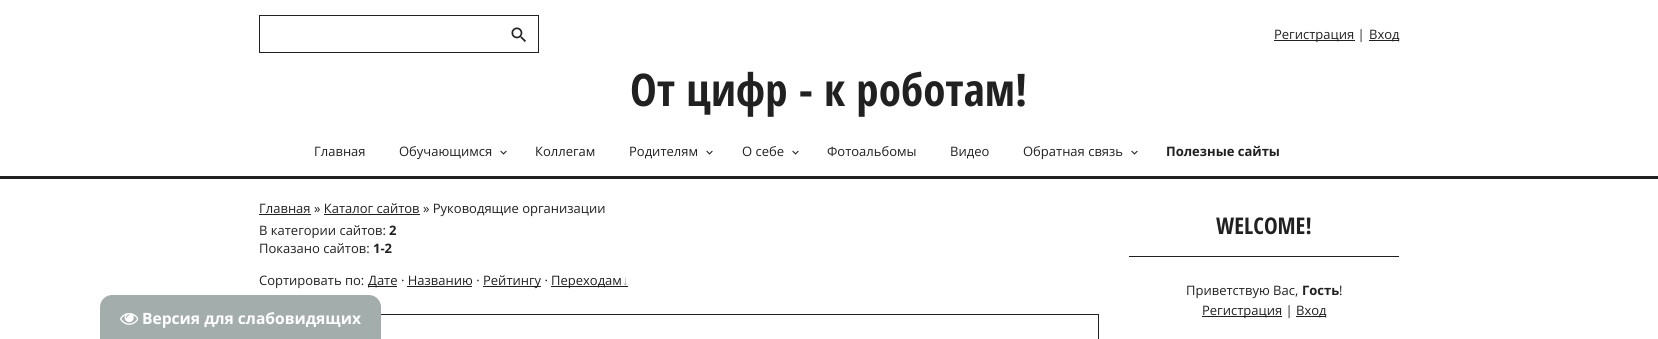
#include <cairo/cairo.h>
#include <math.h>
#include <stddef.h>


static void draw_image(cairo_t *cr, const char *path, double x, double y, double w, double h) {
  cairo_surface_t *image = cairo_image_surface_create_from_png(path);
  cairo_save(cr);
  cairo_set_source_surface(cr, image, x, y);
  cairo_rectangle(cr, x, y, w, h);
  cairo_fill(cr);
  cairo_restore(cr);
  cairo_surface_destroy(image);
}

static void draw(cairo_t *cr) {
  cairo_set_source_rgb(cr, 1, 1, 1);
  cairo_paint(cr);
  cairo_set_source_rgb(cr, 33 / 255.0, 33 / 255.0, 33 / 255.0);
  cairo_rectangle(cr, 0, 176, 1658, 3);
  cairo_fill(cr);
  cairo_rectangle(cr, 259.5, 15.5, 279, 37);
  cairo_set_line_width(cr, 1);
  cairo_stroke(cr);
  draw_image(cr, "images/1.png", 511, 27, 15, 15);
  cairo_rectangle(cr, 1274, 40, 81, 1);
  cairo_fill(cr);
  cairo_rectangle(cr, 1369, 40, 30, 1);
  cairo_fill(cr);
  draw_image(cr, "images/2.png", 500, 150, 7, 5);
  draw_image(cr, "images/2.png", 706, 150, 7, 5);
  draw_image(cr, "images/2.png", 792, 150, 7, 5);
  draw_image(cr, "images/2.png", 1131, 150, 7, 5);
  cairo_rectangle(cr, 259.5, 314.5, 839, 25);
  cairo_stroke(cr);
  cairo_set_source_rgb(cr, 163 / 255.0, 173 / 255.0, 172 / 255.0);
  cairo_new_path(cr);
  cairo_move_to(cr, 112, 295);
  cairo_line_to(cr, 369, 295);
  cairo_curve_to(cr, 375.5, 295, 381, 300.5, 381, 307);
  cairo_line_to(cr, 381, 339);
  cairo_line_to(cr, 100, 339);
  cairo_line_to(cr, 100, 307);
  cairo_curve_to(cr, 100, 300.5, 105.5, 295, 112, 295);
  cairo_close_path(cr);
  cairo_fill(cr);
  draw_image(cr, "images/3.png", 120, 313, 18, 12);
  cairo_set_source_rgb(cr, 33 / 255.0, 33 / 255.0, 33 / 255.0);
  cairo_rectangle(cr, 259, 214, 52, 1);
  cairo_fill(cr);
  cairo_rectangle(cr, 324, 214, 96, 1);
  cairo_fill(cr);
  cairo_rectangle(cr, 368, 286, 29, 1);
  cairo_fill(cr);
  cairo_rectangle(cr, 407, 286, 65, 1);
  cairo_fill(cr);
  cairo_rectangle(cr, 483, 286, 58, 1);
  cairo_fill(cr);
  cairo_rectangle(cr, 551, 286, 77, 1);
  cairo_fill(cr);
  cairo_rectangle(cr, 1129, 256, 270, 1);
  cairo_fill(cr);
  cairo_rectangle(cr, 1202, 316, 80, 1);
  cairo_fill(cr);
  cairo_rectangle(cr, 1296, 316, 30, 1);
  cairo_fill(cr);
  cairo_select_font_face(cr, "Open Sans", CAIRO_FONT_SLANT_NORMAL, CAIRO_FONT_WEIGHT_NORMAL);
  cairo_set_font_size(cr, 13);
  cairo_move_to(cr, 1274, 39);
  cairo_show_text(cr, "Регистрация |");
  cairo_move_to(cr, 1369, 39);
  cairo_show_text(cr, "Вход");
  cairo_select_font_face(cr, "Open Sans Condensed", CAIRO_FONT_SLANT_NORMAL, CAIRO_FONT_WEIGHT_BOLD);
  cairo_set_font_size(cr, 45);
  cairo_move_to(cr, 630, 106);
  cairo_show_text(cr, "От цифр - к роботам!");
  cairo_select_font_face(cr, "Open Sans", CAIRO_FONT_SLANT_NORMAL, CAIRO_FONT_WEIGHT_NORMAL);
  cairo_set_font_size(cr, 13);
  cairo_move_to(cr, 314, 156);
  cairo_show_text(cr, "Главная");
  cairo_move_to(cr, 399, 156);
  cairo_show_text(cr, "Обучающимся");
  cairo_move_to(cr, 535, 156);
  cairo_show_text(cr, "Коллегам");
  cairo_move_to(cr, 629, 156);
  cairo_show_text(cr, "Родителям");
  cairo_move_to(cr, 742, 156);
  cairo_show_text(cr, "О себе");
  cairo_move_to(cr, 827, 156);
  cairo_show_text(cr, "Фотоальбомы");
  cairo_move_to(cr, 950, 156);
  cairo_show_text(cr, "Видео");
  cairo_move_to(cr, 1023, 156);
  cairo_show_text(cr, "Обратная связь");
  cairo_select_font_face(cr, "Open Sans", CAIRO_FONT_SLANT_NORMAL, CAIRO_FONT_WEIGHT_BOLD);
  cairo_move_to(cr, 1166, 156);
  cairo_show_text(cr, "Полезные сайты");
  cairo_set_font_size(cr, 15.6);
  cairo_set_source_rgb(cr, 1, 1, 1);
  cairo_move_to(cr, 142, 324);
  cairo_show_text(cr, "Версия для слабовидящих");
  cairo_select_font_face(cr, "Open Sans", CAIRO_FONT_SLANT_NORMAL, CAIRO_FONT_WEIGHT_NORMAL);
  cairo_set_font_size(cr, 13);
  cairo_set_source_rgb(cr, 33 / 255.0, 33 / 255.0, 33 / 255.0);
  cairo_move_to(cr, 259, 213);
  cairo_show_text(cr, "Главная » Каталог сайтов » Руководящие организации");
  cairo_move_to(cr, 259, 235);
  cairo_show_text(cr, "В категории сайтов:");
  cairo_select_font_face(cr, "Open Sans", CAIRO_FONT_SLANT_NORMAL, CAIRO_FONT_WEIGHT_BOLD);
  cairo_move_to(cr, 389, 235);
  cairo_show_text(cr, "2");
  cairo_select_font_face(cr, "Open Sans", CAIRO_FONT_SLANT_NORMAL, CAIRO_FONT_WEIGHT_NORMAL);
  cairo_move_to(cr, 259, 253);
  cairo_show_text(cr, "Показано сайтов:");
  cairo_select_font_face(cr, "Open Sans", CAIRO_FONT_SLANT_NORMAL, CAIRO_FONT_WEIGHT_BOLD);
  cairo_move_to(cr, 373, 253);
  cairo_show_text(cr, "1-2");
  cairo_select_font_face(cr, "Open Sans", CAIRO_FONT_SLANT_NORMAL, CAIRO_FONT_WEIGHT_NORMAL);
  cairo_move_to(cr, 259, 285);
  cairo_show_text(cr, "Сортировать по:");
  cairo_move_to(cr, 368, 285);
  cairo_show_text(cr, "Дате · Названию ·");
  cairo_move_to(cr, 483, 285);
  cairo_show_text(cr, "Рейтингу ·");
  cairo_move_to(cr, 551, 285);
  cairo_show_text(cr, "Переходам");
  cairo_select_font_face(cr, "Liberation Sans", CAIRO_FONT_SLANT_NORMAL, CAIRO_FONT_WEIGHT_NORMAL);
  cairo_set_source_rgb(cr, 160 / 255.0, 160 / 255.0, 160 / 255.0);
  cairo_move_to(cr, 622, 285);
  cairo_show_text(cr, "↓");
  cairo_select_font_face(cr, "Open Sans Condensed", CAIRO_FONT_SLANT_NORMAL, CAIRO_FONT_WEIGHT_BOLD);
  cairo_set_font_size(cr, 23);
  cairo_set_source_rgb(cr, 33 / 255.0, 33 / 255.0, 33 / 255.0);
  cairo_move_to(cr, 1216, 234);
  cairo_show_text(cr, "WELCOME!");
  cairo_select_font_face(cr, "Open Sans", CAIRO_FONT_SLANT_NORMAL, CAIRO_FONT_WEIGHT_NORMAL);
  cairo_set_font_size(cr, 13);
  cairo_move_to(cr, 1186, 295);
  cairo_show_text(cr, "Приветствую Вас,");
  cairo_select_font_face(cr, "Open Sans", CAIRO_FONT_SLANT_NORMAL, CAIRO_FONT_WEIGHT_BOLD);
  cairo_move_to(cr, 1302, 295);
  cairo_show_text(cr, "Гость");
  cairo_select_font_face(cr, "Open Sans", CAIRO_FONT_SLANT_NORMAL, CAIRO_FONT_WEIGHT_NORMAL);
  cairo_move_to(cr, 1339, 295);
  cairo_show_text(cr, "!");
  cairo_move_to(cr, 1202, 315);
  cairo_show_text(cr, "Регистрация |");
  cairo_move_to(cr, 1296, 315);
  cairo_show_text(cr, "Вход");
}

int main(void) {
  cairo_surface_t *surface = cairo_image_surface_create(CAIRO_FORMAT_RGB24, 1658, 339);
  cairo_t *cr = cairo_create(surface);
  cairo_font_options_t *options = cairo_font_options_create();
  cairo_font_options_set_hint_metrics(options, CAIRO_HINT_METRICS_OFF);
  cairo_font_options_set_hint_style(options, CAIRO_HINT_STYLE_NONE);
  cairo_set_font_options(cr, options);
  cairo_set_miter_limit(cr, 4);
  draw(cr);
  cairo_surface_write_to_png(surface, "out.png");
  cairo_font_options_destroy(options);
  cairo_destroy(cr);
  cairo_surface_destroy(surface);
  return 0;
}
